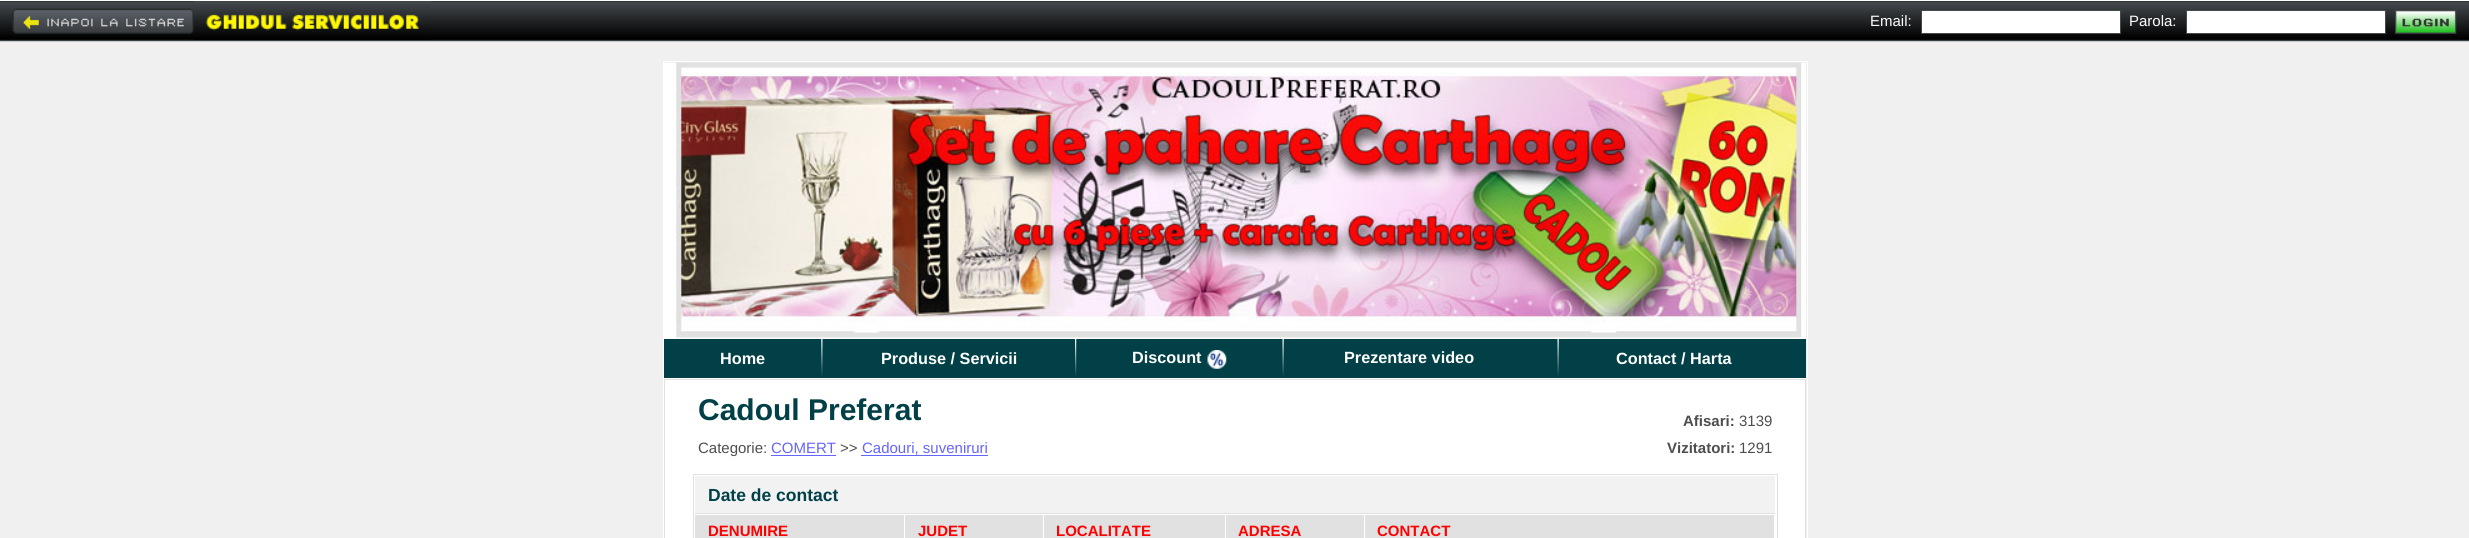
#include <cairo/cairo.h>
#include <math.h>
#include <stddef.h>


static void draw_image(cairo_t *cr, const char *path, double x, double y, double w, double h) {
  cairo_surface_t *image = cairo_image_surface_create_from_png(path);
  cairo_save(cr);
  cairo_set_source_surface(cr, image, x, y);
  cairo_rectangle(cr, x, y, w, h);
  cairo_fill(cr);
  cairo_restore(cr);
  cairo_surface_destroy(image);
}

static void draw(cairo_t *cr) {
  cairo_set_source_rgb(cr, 240 / 255.0, 240 / 255.0, 240 / 255.0);
  cairo_paint(cr);
  draw_image(cr, "images/1.png", 0, 1, 2469, 41);
  cairo_set_source_rgb(cr, 1, 1, 1);
  cairo_rectangle(cr, 0, 0, 2469, 1);
  cairo_fill(cr);
  draw_image(cr, "images/2.png", 12, 8, 182, 26);
  draw_image(cr, "images/3.png", 193, 1, 238, 39);
  cairo_rectangle(cr, 1921.5, 10.5, 199, 23);
  cairo_fill_preserve(cr);
  cairo_set_source_rgb(cr, 68 / 255.0, 73 / 255.0, 77 / 255.0);
  cairo_set_line_width(cr, 1);
  cairo_stroke(cr);
  cairo_set_source_rgb(cr, 1, 1, 1);
  cairo_rectangle(cr, 2186.5, 10.5, 199, 23);
  cairo_fill_preserve(cr);
  cairo_set_source_rgb(cr, 68 / 255.0, 73 / 255.0, 77 / 255.0);
  cairo_stroke(cr);
  draw_image(cr, "images/4.png", 2395, 10, 62, 24);
  cairo_rectangle(cr, 663.5, 61.5, 1144, 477);
  cairo_set_source_rgb(cr, 1, 1, 1);
  cairo_stroke(cr);
  cairo_rectangle(cr, 664, 63, 1142, 276);
  cairo_fill(cr);
  draw_image(cr, "images/5.png", 676, 62, 1126, 276);
  cairo_rectangle(cr, 664, 378, 1142, 1);
  cairo_fill(cr);
  cairo_set_source_rgb(cr, 1 / 255.0, 64 / 255.0, 71 / 255.0);
  cairo_rectangle(cr, 664, 339, 1142, 39);
  cairo_fill(cr);
  draw_image(cr, "images/6.png", 821, 339, 2, 37);
  draw_image(cr, "images/7.png", 1075, 339, 2, 37);
  draw_image(cr, "images/8.png", 1207, 350, 20, 19);
  draw_image(cr, "images/9.png", 1282, 339, 2, 37);
  draw_image(cr, "images/9.png", 1557, 339, 2, 37);
  cairo_set_source_rgb(cr, 1, 1, 1);
  cairo_rectangle(cr, 665, 380, 1140, 158);
  cairo_fill(cr);
  cairo_set_source_rgb(cr, 225 / 255.0, 225 / 255.0, 225 / 255.0);
  cairo_rectangle(cr, 664, 379, 1142, 1);
  cairo_fill(cr);
  cairo_rectangle(cr, 1805, 379, 1, 159);
  cairo_fill(cr);
  cairo_rectangle(cr, 664, 379, 1, 159);
  cairo_fill(cr);
  cairo_set_source_rgb(cr, 100 / 255.0, 100 / 255.0, 1);
  cairo_rectangle(cr, 771, 455, 65, 1);
  cairo_fill(cr);
  cairo_rectangle(cr, 861, 455, 127, 1);
  cairo_fill(cr);
  cairo_rectangle(cr, 693.5, 474.5, 1084, 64);
  cairo_set_source_rgb(cr, 225 / 255.0, 225 / 255.0, 225 / 255.0);
  cairo_stroke(cr);
  cairo_set_source_rgb(cr, 242 / 255.0, 242 / 255.0, 242 / 255.0);
  cairo_rectangle(cr, 695, 476, 1080, 37);
  cairo_fill(cr);
  cairo_set_source_rgb(cr, 225 / 255.0, 225 / 255.0, 225 / 255.0);
  cairo_rectangle(cr, 695, 513, 1080, 1);
  cairo_fill(cr);
  cairo_rectangle(cr, 695, 515, 1079, 23);
  cairo_fill(cr);
  cairo_set_source_rgb(cr, 1, 1, 1);
  cairo_rectangle(cr, 904, 515, 1, 23);
  cairo_fill(cr);
  cairo_rectangle(cr, 1043, 515, 1, 23);
  cairo_fill(cr);
  cairo_rectangle(cr, 1225, 515, 1, 23);
  cairo_fill(cr);
  cairo_rectangle(cr, 1364, 515, 1, 23);
  cairo_fill(cr);
  cairo_select_font_face(cr, "Liberation Sans", CAIRO_FONT_SLANT_NORMAL, CAIRO_FONT_WEIGHT_NORMAL);
  cairo_set_font_size(cr, 15);
  cairo_move_to(cr, 1870, 26);
  cairo_show_text(cr, "Email:");
  cairo_move_to(cr, 2129, 26);
  cairo_show_text(cr, "Parola:");
  cairo_select_font_face(cr, "Liberation Sans", CAIRO_FONT_SLANT_NORMAL, CAIRO_FONT_WEIGHT_BOLD);
  cairo_set_font_size(cr, 16.25);
  cairo_move_to(cr, 720, 364);
  cairo_show_text(cr, "Home");
  cairo_move_to(cr, 881, 364);
  cairo_show_text(cr, "Produse / Servicii");
  cairo_move_to(cr, 1132, 363);
  cairo_show_text(cr, "Discount");
  cairo_move_to(cr, 1344, 363);
  cairo_show_text(cr, "Prezentare video");
  cairo_move_to(cr, 1616, 364);
  cairo_show_text(cr, "Contact / Harta");
  cairo_set_font_size(cr, 30);
  cairo_set_source_rgb(cr, 1 / 255.0, 64 / 255.0, 71 / 255.0);
  cairo_move_to(cr, 698, 420);
  cairo_show_text(cr, "Cadoul Preferat");
  cairo_set_font_size(cr, 15);
  cairo_set_source_rgb(cr, 78 / 255.0, 78 / 255.0, 78 / 255.0);
  cairo_move_to(cr, 1683, 426);
  cairo_show_text(cr, "Afisari:");
  cairo_select_font_face(cr, "Liberation Sans", CAIRO_FONT_SLANT_NORMAL, CAIRO_FONT_WEIGHT_NORMAL);
  cairo_move_to(cr, 1739, 426);
  cairo_show_text(cr, "3139");
  cairo_move_to(cr, 698, 453);
  cairo_show_text(cr, "Categorie:");
  cairo_set_source_rgb(cr, 100 / 255.0, 100 / 255.0, 1);
  cairo_move_to(cr, 771, 453);
  cairo_show_text(cr, "COMERT");
  cairo_set_source_rgb(cr, 78 / 255.0, 78 / 255.0, 78 / 255.0);
  cairo_move_to(cr, 840, 453);
  cairo_show_text(cr, ">>");
  cairo_set_source_rgb(cr, 100 / 255.0, 100 / 255.0, 1);
  cairo_move_to(cr, 862, 453);
  cairo_show_text(cr, "Cadouri, suveniruri");
  cairo_select_font_face(cr, "Liberation Sans", CAIRO_FONT_SLANT_NORMAL, CAIRO_FONT_WEIGHT_BOLD);
  cairo_set_source_rgb(cr, 78 / 255.0, 78 / 255.0, 78 / 255.0);
  cairo_move_to(cr, 1667, 453);
  cairo_show_text(cr, "Vizitatori:");
  cairo_select_font_face(cr, "Liberation Sans", CAIRO_FONT_SLANT_NORMAL, CAIRO_FONT_WEIGHT_NORMAL);
  cairo_move_to(cr, 1739, 453);
  cairo_show_text(cr, "1291");
  cairo_select_font_face(cr, "Liberation Sans", CAIRO_FONT_SLANT_NORMAL, CAIRO_FONT_WEIGHT_BOLD);
  cairo_set_font_size(cr, 17.5);
  cairo_set_source_rgb(cr, 1 / 255.0, 64 / 255.0, 71 / 255.0);
  cairo_move_to(cr, 708, 501);
  cairo_show_text(cr, "Date de contact");
  cairo_set_font_size(cr, 15);
  cairo_set_source_rgb(cr, 1, 0, 0);
  cairo_move_to(cr, 708, 536);
  cairo_show_text(cr, "DENUMIRE");
  cairo_move_to(cr, 918, 536);
  cairo_show_text(cr, "JUDET");
  cairo_move_to(cr, 1056, 536);
  cairo_show_text(cr, "LOCALITATE");
  cairo_move_to(cr, 1238, 536);
  cairo_show_text(cr, "ADRESA");
  cairo_move_to(cr, 1377, 536);
  cairo_show_text(cr, "CONTACT");
}

int main(void) {
  cairo_surface_t *surface = cairo_image_surface_create(CAIRO_FORMAT_RGB24, 2469, 538);
  cairo_t *cr = cairo_create(surface);
  cairo_font_options_t *options = cairo_font_options_create();
  cairo_font_options_set_hint_metrics(options, CAIRO_HINT_METRICS_OFF);
  cairo_font_options_set_hint_style(options, CAIRO_HINT_STYLE_NONE);
  cairo_set_font_options(cr, options);
  cairo_set_miter_limit(cr, 4);
  draw(cr);
  cairo_surface_write_to_png(surface, "out.png");
  cairo_font_options_destroy(options);
  cairo_destroy(cr);
  cairo_surface_destroy(surface);
  return 0;
}
